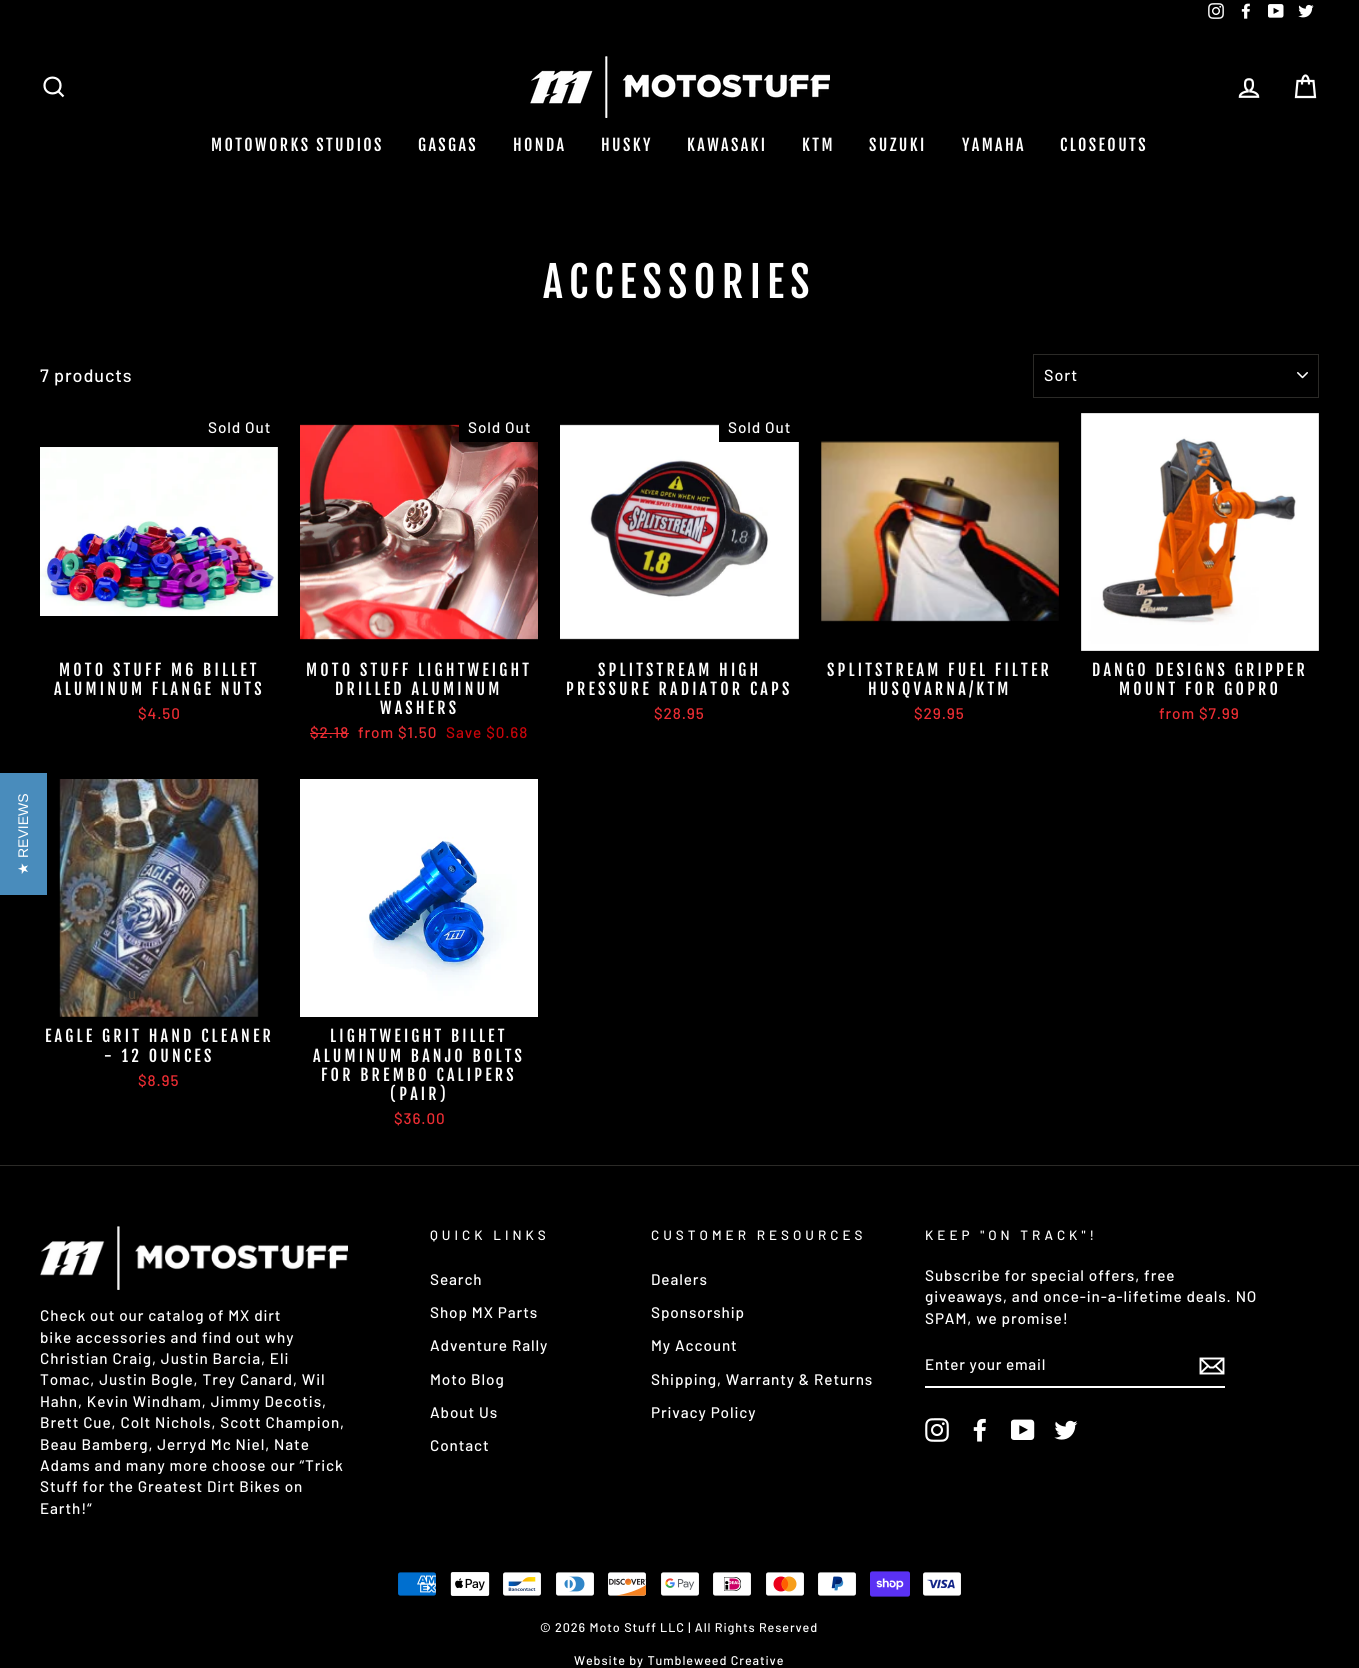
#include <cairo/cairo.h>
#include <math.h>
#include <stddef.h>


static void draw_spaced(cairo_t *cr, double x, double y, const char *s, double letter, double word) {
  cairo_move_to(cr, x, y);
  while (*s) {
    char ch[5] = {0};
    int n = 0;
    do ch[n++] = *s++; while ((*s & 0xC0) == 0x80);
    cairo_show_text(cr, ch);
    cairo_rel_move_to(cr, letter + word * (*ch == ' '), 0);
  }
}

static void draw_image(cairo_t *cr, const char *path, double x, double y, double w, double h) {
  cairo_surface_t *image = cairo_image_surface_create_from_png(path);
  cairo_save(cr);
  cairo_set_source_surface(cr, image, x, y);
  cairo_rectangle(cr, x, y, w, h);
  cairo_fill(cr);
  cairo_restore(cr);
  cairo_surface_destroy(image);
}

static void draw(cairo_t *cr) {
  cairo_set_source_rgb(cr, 0, 0, 0);
  cairo_paint(cr);
  cairo_set_source_rgb(cr, 73 / 255.0, 140 / 255.0, 188 / 255.0);
  cairo_rectangle(cr, 0, 773, 47, 122);
  cairo_fill(cr);
  draw_image(cr, "images/1.png", 1208, 3, 16, 16);
  draw_image(cr, "images/2.png", 1241, 3, 9, 16);
  draw_image(cr, "images/3.png", 1268, 4, 16, 14);
  draw_image(cr, "images/4.png", 1298, 4, 16, 14);
  cairo_new_path(cr);
  cairo_move_to(cr, 60.5, 85.5);
  cairo_curve_to(cr, 60.5, 96, 44.5, 96, 44.5, 85.5);
  cairo_curve_to(cr, 44.5, 75, 60.5, 75, 60.5, 85.5);
  cairo_close_path(cr);
  cairo_move_to(cr, 63.5, 96.5);
  cairo_line_to(cr, 58.5, 91.5);
  cairo_set_source_rgb(cr, 1, 1, 1);
  cairo_set_line_width(cr, 2.2);
  cairo_stroke(cr);
  draw_image(cr, "images/5.png", 530, 56, 300, 62);
  draw_image(cr, "images/6.png", 1238, 78, 22, 20);
  cairo_new_path(cr);
  cairo_move_to(cr, 1302, 84.5);
  cairo_curve_to(cr, 1302, 72.5, 1309, 72.5, 1309, 84.5);
  cairo_move_to(cr, 1297.5, 81);
  cairo_line_to(cr, 1313.5, 81);
  cairo_line_to(cr, 1315, 97);
  cairo_line_to(cr, 1296, 97);
  cairo_close_path(cr);
  cairo_stroke(cr);
  draw_image(cr, "images/7.png", 1297, 372, 11, 7);
  cairo_rectangle(cr, 1033.5, 354.5, 285, 43);
  cairo_set_source_rgb(cr, 43 / 255.0, 42 / 255.0, 39 / 255.0);
  cairo_set_line_width(cr, 1);
  cairo_stroke(cr);
  draw_image(cr, "images/8.png", 40, 447, 238, 169);
  draw_image(cr, "images/9.png", 300, 424, 238, 216);
  cairo_set_source_rgb(cr, 0, 0, 0);
  cairo_rectangle(cr, 459, 424, 79, 18);
  cairo_fill(cr);
  cairo_set_source_rgb(cr, 238 / 255.0, 45 / 255.0, 51 / 255.0);
  cairo_rectangle(cr, 310, 733, 39, 1);
  cairo_fill(cr);
  draw_image(cr, "images/10.png", 560, 424, 239, 216);
  cairo_set_source_rgb(cr, 0, 0, 0);
  cairo_rectangle(cr, 719, 424, 80, 18);
  cairo_fill(cr);
  draw_image(cr, "images/11.png", 821, 441, 238, 181);
  draw_image(cr, "images/12.png", 1081, 413, 238, 238);
  draw_image(cr, "images/13.png", 59, 779, 200, 238);
  draw_image(cr, "images/14.png", 300, 779, 238, 238);
  cairo_set_source_rgb(cr, 43 / 255.0, 42 / 255.0, 39 / 255.0);
  cairo_rectangle(cr, 0, 1165, 1359, 1);
  cairo_fill(cr);
  draw_image(cr, "images/15.png", 40, 1226, 308, 64);
  cairo_set_source_rgb(cr, 1, 1, 1);
  cairo_rectangle(cr, 925, 1386, 300, 2);
  cairo_fill(cr);
  cairo_new_path(cr);
  cairo_move_to(cr, 1223.5, 1373.5);
  cairo_line_to(cr, 1200.5, 1373.5);
  cairo_line_to(cr, 1200.5, 1358.5);
  cairo_line_to(cr, 1223.5, 1358.5);
  cairo_close_path(cr);
  cairo_move_to(cr, 1200.5, 1358.5);
  cairo_line_to(cr, 1210, 1367.5);
  cairo_line_to(cr, 1213.5, 1367.5);
  cairo_line_to(cr, 1223.5, 1358.5);
  cairo_move_to(cr, 1208, 1366);
  cairo_line_to(cr, 1200.5, 1373);
  cairo_move_to(cr, 1223.5, 1373.5);
  cairo_line_to(cr, 1215.5, 1366);
  cairo_set_line_width(cr, 1.9);
  cairo_stroke(cr);
  draw_image(cr, "images/16.png", 925, 1418, 24, 24);
  draw_image(cr, "images/17.png", 973, 1418, 13, 24);
  draw_image(cr, "images/18.png", 1011, 1419, 24, 21);
  draw_image(cr, "images/19.png", 1054, 1420, 24, 20);
  draw_image(cr, "images/20.png", 398, 1572, 38, 24);
  draw_image(cr, "images/21.png", 450, 1572, 40, 24);
  draw_image(cr, "images/22.png", 503, 1572, 38, 24);
  draw_image(cr, "images/23.png", 556, 1572, 38, 24);
  draw_image(cr, "images/24.png", 608, 1572, 38, 24);
  draw_image(cr, "images/25.png", 661, 1572, 38, 24);
  draw_image(cr, "images/26.png", 713, 1572, 38, 24);
  draw_image(cr, "images/27.png", 766, 1572, 38, 24);
  draw_image(cr, "images/28.png", 818, 1572, 38, 24);
  draw_image(cr, "images/29.png", 870, 1571, 40, 26);
  draw_image(cr, "images/30.png", 923, 1572, 38, 24);
  cairo_select_font_face(cr, "Liberation Sans", CAIRO_FONT_SLANT_NORMAL, CAIRO_FONT_WEIGHT_NORMAL);
  cairo_set_font_size(cr, 14);
  cairo_save(cr);
  cairo_translate(cr, 28, 858);
  cairo_rotate(cr, -90 * M_PI / 180);
  cairo_move_to(cr, 0, 0);
  cairo_show_text(cr, "REVIEWS");
  cairo_restore(cr);
  cairo_select_font_face(cr, "DejaVu Sans", CAIRO_FONT_SLANT_NORMAL, CAIRO_FONT_WEIGHT_NORMAL);
  cairo_save(cr);
  cairo_translate(cr, 28, 875);
  cairo_rotate(cr, -90 * M_PI / 180);
  cairo_move_to(cr, 0, 0);
  cairo_show_text(cr, "★");
  cairo_restore(cr);
  cairo_select_font_face(cr, "Fjalla One", CAIRO_FONT_SLANT_NORMAL, CAIRO_FONT_WEIGHT_NORMAL);
  cairo_set_font_size(cr, 16);
  draw_spaced(cr, 211, 151, "MOTOWORKS STUDIOS", 2.4, 0);
  draw_spaced(cr, 418, 151, "GASGAS", 2.4, 0);
  draw_spaced(cr, 513, 151, "HONDA", 2.4, 0);
  draw_spaced(cr, 601, 151, "HUSKY", 2.4, 0);
  draw_spaced(cr, 687, 151, "KAWASAKI", 2.4, 0);
  draw_spaced(cr, 802, 151, "KTM", 2.4, 0);
  draw_spaced(cr, 869, 151, "SUZUKI", 2.4, 0);
  draw_spaced(cr, 962, 151, "YAMAHA", 2.4, 0);
  draw_spaced(cr, 1060, 151, "CLOSEOUTS", 2.4, 0);
  cairo_set_font_size(cr, 42);
  draw_spaced(cr, 543, 298, "ACCESSORIES", 6.25, 0);
  cairo_select_font_face(cr, "Barlow Medium", CAIRO_FONT_SLANT_NORMAL, CAIRO_FONT_WEIGHT_NORMAL);
  cairo_set_font_size(cr, 18);
  draw_spaced(cr, 40, 382, "7 products", 0.9, 0);
  cairo_set_font_size(cr, 16);
  draw_spaced(cr, 1044, 381, "Sort", 1, 0);
  cairo_set_font_size(cr, 15.3);
  draw_spaced(cr, 208, 433, "Sold Out", 0.9, 0);
  cairo_select_font_face(cr, "Fjalla One", CAIRO_FONT_SLANT_NORMAL, CAIRO_FONT_WEIGHT_NORMAL);
  cairo_set_font_size(cr, 16);
  draw_spaced(cr, 59, 676, "MOTO STUFF M6 BILLET", 3.2, 0);
  draw_spaced(cr, 54, 695, "ALUMINUM FLANGE NUTS", 3.2, 0);
  cairo_select_font_face(cr, "Barlow Medium", CAIRO_FONT_SLANT_NORMAL, CAIRO_FONT_WEIGHT_NORMAL);
  cairo_set_font_size(cr, 15.3);
  cairo_set_source_rgb(cr, 238 / 255.0, 45 / 255.0, 51 / 255.0);
  draw_spaced(cr, 138, 719, "$4.50", 0.9, 0);
  cairo_set_source_rgb(cr, 1, 1, 1);
  draw_spaced(cr, 468, 433, "Sold Out", 0.9, 0);
  cairo_select_font_face(cr, "Fjalla One", CAIRO_FONT_SLANT_NORMAL, CAIRO_FONT_WEIGHT_NORMAL);
  cairo_set_font_size(cr, 16);
  draw_spaced(cr, 306, 676, "MOTO STUFF LIGHTWEIGHT", 3.2, 0);
  draw_spaced(cr, 335, 695, "DRILLED ALUMINUM", 3.2, 0);
  draw_spaced(cr, 380, 714, "WASHERS", 3.2, 0);
  cairo_select_font_face(cr, "Barlow Medium", CAIRO_FONT_SLANT_NORMAL, CAIRO_FONT_WEIGHT_NORMAL);
  cairo_set_font_size(cr, 15.3);
  cairo_set_source_rgb(cr, 238 / 255.0, 45 / 255.0, 51 / 255.0);
  draw_spaced(cr, 310, 738, "$2.18", 0.9, 0);
  draw_spaced(cr, 358, 738, "from $1.50", 0.9, 0);
  cairo_set_source_rgb(cr, 200 / 255.0, 4 / 255.0, 10 / 255.0);
  draw_spaced(cr, 446, 738, "Save $0.68", 0.9, 0);
  cairo_set_source_rgb(cr, 1, 1, 1);
  draw_spaced(cr, 728, 433, "Sold Out", 0.9, 0);
  cairo_select_font_face(cr, "Fjalla One", CAIRO_FONT_SLANT_NORMAL, CAIRO_FONT_WEIGHT_NORMAL);
  cairo_set_font_size(cr, 16);
  draw_spaced(cr, 598, 676, "SPLITSTREAM HIGH", 3.2, 0);
  draw_spaced(cr, 566, 695, "PRESSURE RADIATOR CAPS", 3.2, 0);
  cairo_select_font_face(cr, "Barlow Medium", CAIRO_FONT_SLANT_NORMAL, CAIRO_FONT_WEIGHT_NORMAL);
  cairo_set_font_size(cr, 15.3);
  cairo_set_source_rgb(cr, 238 / 255.0, 45 / 255.0, 51 / 255.0);
  draw_spaced(cr, 654, 719, "$28.95", 0.9, 0);
  cairo_select_font_face(cr, "Fjalla One", CAIRO_FONT_SLANT_NORMAL, CAIRO_FONT_WEIGHT_NORMAL);
  cairo_set_font_size(cr, 16);
  cairo_set_source_rgb(cr, 1, 1, 1);
  draw_spaced(cr, 827, 676, "SPLITSTREAM FUEL FILTER", 3.2, 0);
  draw_spaced(cr, 868, 695, "HUSQVARNA/KTM", 3.2, 0);
  cairo_select_font_face(cr, "Barlow Medium", CAIRO_FONT_SLANT_NORMAL, CAIRO_FONT_WEIGHT_NORMAL);
  cairo_set_font_size(cr, 15.3);
  cairo_set_source_rgb(cr, 238 / 255.0, 45 / 255.0, 51 / 255.0);
  draw_spaced(cr, 914, 719, "$29.95", 0.9, 0);
  cairo_select_font_face(cr, "Fjalla One", CAIRO_FONT_SLANT_NORMAL, CAIRO_FONT_WEIGHT_NORMAL);
  cairo_set_font_size(cr, 16);
  cairo_set_source_rgb(cr, 1, 1, 1);
  draw_spaced(cr, 1092, 676, "DANGO DESIGNS GRIPPER", 3.2, 0);
  draw_spaced(cr, 1119, 695, "MOUNT FOR GOPRO", 3.2, 0);
  cairo_select_font_face(cr, "Barlow Medium", CAIRO_FONT_SLANT_NORMAL, CAIRO_FONT_WEIGHT_NORMAL);
  cairo_set_font_size(cr, 15.3);
  cairo_set_source_rgb(cr, 238 / 255.0, 45 / 255.0, 51 / 255.0);
  draw_spaced(cr, 1159, 719, "from $7.99", 0.9, 0);
  cairo_set_source_rgb(cr, 85 / 255.0, 72 / 255.0, 58 / 255.0);
  draw_spaced(cr, 128, 999, "u", 0.9, 0);
  cairo_select_font_face(cr, "Fjalla One", CAIRO_FONT_SLANT_NORMAL, CAIRO_FONT_WEIGHT_NORMAL);
  cairo_set_font_size(cr, 16);
  cairo_set_source_rgb(cr, 1, 1, 1);
  draw_spaced(cr, 45, 1042, "EAGLE GRIT HAND CLEANER", 3.2, 0);
  draw_spaced(cr, 104, 1062, "- 12 OUNCES", 3.2, 0);
  cairo_select_font_face(cr, "Barlow Medium", CAIRO_FONT_SLANT_NORMAL, CAIRO_FONT_WEIGHT_NORMAL);
  cairo_set_font_size(cr, 15.3);
  cairo_set_source_rgb(cr, 238 / 255.0, 45 / 255.0, 51 / 255.0);
  draw_spaced(cr, 138, 1086, "$8.95", 0.9, 0);
  cairo_select_font_face(cr, "Fjalla One", CAIRO_FONT_SLANT_NORMAL, CAIRO_FONT_WEIGHT_NORMAL);
  cairo_set_font_size(cr, 16);
  cairo_set_source_rgb(cr, 1, 1, 1);
  draw_spaced(cr, 330, 1042, "LIGHTWEIGHT BILLET", 3.2, 0);
  draw_spaced(cr, 313, 1062, "ALUMINUM BANJO BOLTS", 3.2, 0);
  draw_spaced(cr, 321, 1081, "FOR BREMBO CALIPERS", 3.2, 0);
  draw_spaced(cr, 390, 1100, "(PAIR)", 3.2, 0);
  cairo_select_font_face(cr, "Barlow Medium", CAIRO_FONT_SLANT_NORMAL, CAIRO_FONT_WEIGHT_NORMAL);
  cairo_set_font_size(cr, 15.3);
  cairo_set_source_rgb(cr, 238 / 255.0, 45 / 255.0, 51 / 255.0);
  draw_spaced(cr, 394, 1124, "$36.00", 0.9, 0);
  cairo_set_source_rgb(cr, 1, 1, 1);
  draw_spaced(cr, 40, 1321, "Check out our catalog of MX dirt", 0.9, 0);
  draw_spaced(cr, 40, 1343, "bike accessories and find out why", 0.9, 0);
  draw_spaced(cr, 40, 1364, "Christian Craig, Justin Barcia, Eli", 0.9, 0);
  draw_spaced(cr, 40, 1385, "Tomac, Justin Bogle, Trey Canard, Wil", 0.9, 0);
  draw_spaced(cr, 40, 1407, "Hahn, Kevin Windham, Jimmy Decotis,", 0.9, 0);
  draw_spaced(cr, 40, 1428, "Brett Cue, Colt Nichols, Scott Champion,", 0.9, 0);
  draw_spaced(cr, 40, 1450, "Beau Bamberg, Jerryd Mc Niel, Nate", 0.9, 0);
  draw_spaced(cr, 40, 1471, "Adams and many more choose our “Trick", 0.9, 0);
  draw_spaced(cr, 40, 1492, "Stuff for the Greatest Dirt Bikes on", 0.9, 0);
  draw_spaced(cr, 40, 1514, "Earth!“", 0.9, 0);
  cairo_set_font_size(cr, 13.5);
  draw_spaced(cr, 430, 1240, "QUICK LINKS", 4, 0);
  cairo_set_font_size(cr, 15.3);
  draw_spaced(cr, 430, 1285, "Search", 0.9, 0);
  draw_spaced(cr, 430, 1318, "Shop MX Parts", 0.9, 0);
  draw_spaced(cr, 430, 1351, "Adventure Rally", 0.9, 0);
  draw_spaced(cr, 430, 1385, "Moto Blog", 0.9, 0);
  draw_spaced(cr, 430, 1418, "About Us", 0.9, 0);
  draw_spaced(cr, 430, 1451, "Contact", 0.9, 0);
  cairo_set_font_size(cr, 13.5);
  draw_spaced(cr, 651, 1240, "CUSTOMER RESOURCES", 4, 0);
  cairo_set_font_size(cr, 15.3);
  draw_spaced(cr, 651, 1285, "Dealers", 0.9, 0);
  draw_spaced(cr, 651, 1318, "Sponsorship", 0.9, 0);
  draw_spaced(cr, 651, 1351, "My Account", 0.9, 0);
  draw_spaced(cr, 651, 1385, "Shipping, Warranty & Returns", 0.9, 0);
  draw_spaced(cr, 651, 1418, "Privacy Policy", 0.9, 0);
  cairo_set_font_size(cr, 13.5);
  draw_spaced(cr, 925, 1240, "KEEP \"ON TRACK\"!", 4, 0);
  cairo_set_font_size(cr, 15.3);
  draw_spaced(cr, 925, 1281, "Subscribe for special offers, free", 0.9, 0);
  draw_spaced(cr, 925, 1302, "giveaways, and once-in-a-lifetime deals. NO", 0.9, 0);
  draw_spaced(cr, 925, 1324, "SPAM, we promise!", 0.9, 0);
  draw_spaced(cr, 925, 1370, "Enter your email", 0.75, 0);
  cairo_set_font_size(cr, 12.6);
  draw_spaced(cr, 540, 1632, "© 2026 Moto Stuff LLC | All Rights Reserved", 0.9, 0);
  draw_spaced(cr, 574, 1665, "Website by Tumbleweed Creative", 0.9, 0);
}

int main(void) {
  cairo_surface_t *surface = cairo_image_surface_create(CAIRO_FORMAT_RGB24, 1359, 1668);
  cairo_t *cr = cairo_create(surface);
  cairo_font_options_t *options = cairo_font_options_create();
  cairo_font_options_set_hint_metrics(options, CAIRO_HINT_METRICS_OFF);
  cairo_font_options_set_hint_style(options, CAIRO_HINT_STYLE_NONE);
  cairo_set_font_options(cr, options);
  cairo_set_miter_limit(cr, 4);
  draw(cr);
  cairo_surface_write_to_png(surface, "out.png");
  cairo_font_options_destroy(options);
  cairo_destroy(cr);
  cairo_surface_destroy(surface);
  return 0;
}
